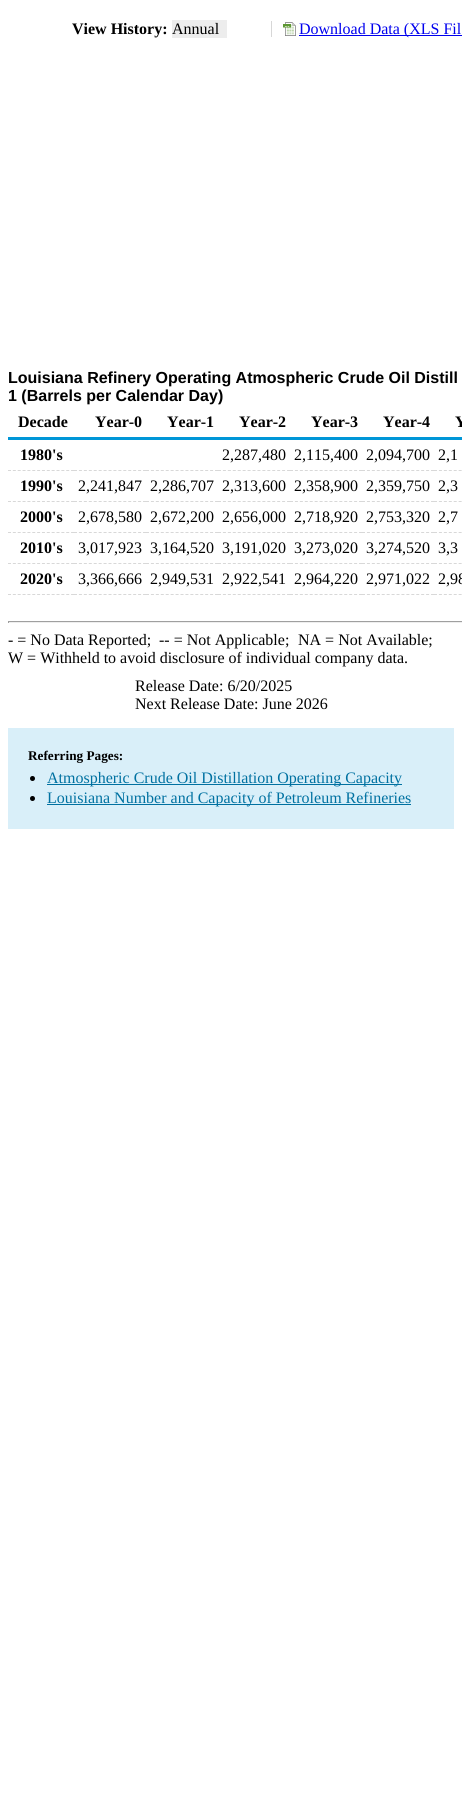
#include <cairo/cairo.h>
#include <math.h>
#include <stddef.h>


static void draw_image(cairo_t *cr, const char *path, double x, double y, double w, double h) {
  cairo_surface_t *image = cairo_image_surface_create_from_png(path);
  cairo_save(cr);
  cairo_set_source_surface(cr, image, x, y);
  cairo_rectangle(cr, x, y, w, h);
  cairo_fill(cr);
  cairo_restore(cr);
  cairo_surface_destroy(image);
}

static void draw(cairo_t *cr) {
  cairo_set_source_rgb(cr, 1, 1, 1);
  cairo_paint(cr);
  cairo_set_source_rgb(cr, 237 / 255.0, 237 / 255.0, 237 / 255.0);
  cairo_rectangle(cr, 172, 20, 55, 18);
  cairo_fill(cr);
  cairo_set_source_rgb(cr, 215 / 255.0, 215 / 255.0, 215 / 255.0);
  cairo_rectangle(cr, 271, 21, 1, 16);
  cairo_fill(cr);
  draw_image(cr, "images/1.png", 283, 22, 13, 14);
  cairo_set_source_rgb(cr, 0, 0, 238 / 255.0);
  cairo_rectangle(cr, 299, 35, 163, 1);
  cairo_fill(cr);
  cairo_set_source_rgb(cr, 0, 150 / 255.0, 215 / 255.0);
  cairo_rectangle(cr, 8, 437, 454, 3);
  cairo_fill(cr);
  cairo_new_path(cr);
  cairo_move_to(cr, 8, 470.5);
  cairo_line_to(cr, 74, 470.5);
  cairo_set_source_rgb(cr, 216 / 255.0, 216 / 255.0, 216 / 255.0);
  cairo_set_line_width(cr, 1);
  cairo_set_dash(cr, (double[]){3, 1.85}, 2, 0);
  cairo_stroke(cr);
  cairo_new_path(cr);
  cairo_move_to(cr, 218, 470.5);
  cairo_line_to(cr, 290, 470.5);
  cairo_set_dash(cr, (double[]){3, 1.93}, 2, 0);
  cairo_stroke(cr);
  cairo_new_path(cr);
  cairo_move_to(cr, 290, 470.5);
  cairo_line_to(cr, 362, 470.5);
  cairo_stroke(cr);
  cairo_new_path(cr);
  cairo_move_to(cr, 362, 470.5);
  cairo_line_to(cr, 434, 470.5);
  cairo_stroke(cr);
  cairo_new_path(cr);
  cairo_move_to(cr, 434, 470.5);
  cairo_line_to(cr, 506, 470.5);
  cairo_stroke(cr);
  cairo_new_path(cr);
  cairo_move_to(cr, 74, 470.5);
  cairo_line_to(cr, 146, 470.5);
  cairo_stroke(cr);
  cairo_new_path(cr);
  cairo_move_to(cr, 146, 470.5);
  cairo_line_to(cr, 218, 470.5);
  cairo_stroke(cr);
  cairo_new_path(cr);
  cairo_move_to(cr, 8, 501.5);
  cairo_line_to(cr, 74, 501.5);
  cairo_set_dash(cr, (double[]){3, 1.85}, 2, 0);
  cairo_stroke(cr);
  cairo_new_path(cr);
  cairo_move_to(cr, 74, 501.5);
  cairo_line_to(cr, 146, 501.5);
  cairo_set_dash(cr, (double[]){3, 1.93}, 2, 0);
  cairo_stroke(cr);
  cairo_new_path(cr);
  cairo_move_to(cr, 146, 501.5);
  cairo_line_to(cr, 218, 501.5);
  cairo_stroke(cr);
  cairo_new_path(cr);
  cairo_move_to(cr, 218, 501.5);
  cairo_line_to(cr, 290, 501.5);
  cairo_stroke(cr);
  cairo_new_path(cr);
  cairo_move_to(cr, 290, 501.5);
  cairo_line_to(cr, 362, 501.5);
  cairo_stroke(cr);
  cairo_new_path(cr);
  cairo_move_to(cr, 362, 501.5);
  cairo_line_to(cr, 434, 501.5);
  cairo_stroke(cr);
  cairo_new_path(cr);
  cairo_move_to(cr, 434, 501.5);
  cairo_line_to(cr, 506, 501.5);
  cairo_stroke(cr);
  cairo_new_path(cr);
  cairo_move_to(cr, 8, 532.5);
  cairo_line_to(cr, 74, 532.5);
  cairo_set_dash(cr, (double[]){3, 1.85}, 2, 0);
  cairo_stroke(cr);
  cairo_new_path(cr);
  cairo_move_to(cr, 74, 532.5);
  cairo_line_to(cr, 146, 532.5);
  cairo_set_dash(cr, (double[]){3, 1.93}, 2, 0);
  cairo_stroke(cr);
  cairo_new_path(cr);
  cairo_move_to(cr, 146, 532.5);
  cairo_line_to(cr, 218, 532.5);
  cairo_stroke(cr);
  cairo_new_path(cr);
  cairo_move_to(cr, 218, 532.5);
  cairo_line_to(cr, 290, 532.5);
  cairo_stroke(cr);
  cairo_new_path(cr);
  cairo_move_to(cr, 290, 532.5);
  cairo_line_to(cr, 362, 532.5);
  cairo_stroke(cr);
  cairo_new_path(cr);
  cairo_move_to(cr, 362, 532.5);
  cairo_line_to(cr, 434, 532.5);
  cairo_stroke(cr);
  cairo_new_path(cr);
  cairo_move_to(cr, 434, 532.5);
  cairo_line_to(cr, 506, 532.5);
  cairo_stroke(cr);
  cairo_new_path(cr);
  cairo_move_to(cr, 8, 563.5);
  cairo_line_to(cr, 74, 563.5);
  cairo_set_dash(cr, (double[]){3, 1.85}, 2, 0);
  cairo_stroke(cr);
  cairo_new_path(cr);
  cairo_move_to(cr, 74, 563.5);
  cairo_line_to(cr, 146, 563.5);
  cairo_set_dash(cr, (double[]){3, 1.93}, 2, 0);
  cairo_stroke(cr);
  cairo_new_path(cr);
  cairo_move_to(cr, 146, 563.5);
  cairo_line_to(cr, 218, 563.5);
  cairo_stroke(cr);
  cairo_new_path(cr);
  cairo_move_to(cr, 218, 563.5);
  cairo_line_to(cr, 290, 563.5);
  cairo_stroke(cr);
  cairo_new_path(cr);
  cairo_move_to(cr, 290, 563.5);
  cairo_line_to(cr, 362, 563.5);
  cairo_stroke(cr);
  cairo_new_path(cr);
  cairo_move_to(cr, 362, 563.5);
  cairo_line_to(cr, 434, 563.5);
  cairo_stroke(cr);
  cairo_new_path(cr);
  cairo_move_to(cr, 434, 563.5);
  cairo_line_to(cr, 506, 563.5);
  cairo_stroke(cr);
  cairo_new_path(cr);
  cairo_move_to(cr, 8, 594.5);
  cairo_line_to(cr, 74, 594.5);
  cairo_set_dash(cr, (double[]){3, 1.85}, 2, 0);
  cairo_stroke(cr);
  cairo_new_path(cr);
  cairo_move_to(cr, 74, 594.5);
  cairo_line_to(cr, 146, 594.5);
  cairo_set_dash(cr, (double[]){3, 1.93}, 2, 0);
  cairo_stroke(cr);
  cairo_new_path(cr);
  cairo_move_to(cr, 146, 594.5);
  cairo_line_to(cr, 218, 594.5);
  cairo_stroke(cr);
  cairo_new_path(cr);
  cairo_move_to(cr, 218, 594.5);
  cairo_line_to(cr, 290, 594.5);
  cairo_stroke(cr);
  cairo_new_path(cr);
  cairo_move_to(cr, 290, 594.5);
  cairo_line_to(cr, 362, 594.5);
  cairo_stroke(cr);
  cairo_new_path(cr);
  cairo_move_to(cr, 362, 594.5);
  cairo_line_to(cr, 434, 594.5);
  cairo_stroke(cr);
  cairo_new_path(cr);
  cairo_move_to(cr, 434, 594.5);
  cairo_line_to(cr, 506, 594.5);
  cairo_stroke(cr);
  cairo_set_source_rgb(cr, 159 / 255.0, 159 / 255.0, 159 / 255.0);
  cairo_rectangle(cr, 8, 621, 454, 1);
  cairo_fill(cr);
  cairo_set_source_rgb(cr, 238 / 255.0, 238 / 255.0, 238 / 255.0);
  cairo_rectangle(cr, 8, 622, 454, 1);
  cairo_fill(cr);
  cairo_set_source_rgb(cr, 159 / 255.0, 159 / 255.0, 159 / 255.0);
  cairo_rectangle(cr, 8, 621, 1, 2);
  cairo_fill(cr);
  cairo_set_source_rgb(cr, 217 / 255.0, 239 / 255.0, 249 / 255.0);
  cairo_rectangle(cr, 8, 728, 446, 101);
  cairo_fill(cr);
  cairo_set_source_rgb(cr, 0, 0, 0);
  cairo_arc(cr, 32.5, 778.5, 2.5, 0, 2 * M_PI);
  cairo_fill(cr);
  cairo_set_source_rgb(cr, 0, 113 / 255.0, 161 / 255.0);
  cairo_rectangle(cr, 47, 784, 355, 1);
  cairo_fill(cr);
  cairo_set_source_rgb(cr, 0, 0, 0);
  cairo_arc(cr, 32.5, 798.5, 2.5, 0, 2 * M_PI);
  cairo_fill(cr);
  cairo_set_source_rgb(cr, 0, 113 / 255.0, 161 / 255.0);
  cairo_rectangle(cr, 47, 804, 364, 1);
  cairo_fill(cr);
  cairo_select_font_face(cr, "Liberation Serif", CAIRO_FONT_SLANT_NORMAL, CAIRO_FONT_WEIGHT_BOLD);
  cairo_set_font_size(cr, 16);
  cairo_set_source_rgb(cr, 0, 0, 0);
  cairo_move_to(cr, 72, 34);
  cairo_show_text(cr, "View History:");
  cairo_select_font_face(cr, "Liberation Serif", CAIRO_FONT_SLANT_NORMAL, CAIRO_FONT_WEIGHT_NORMAL);
  cairo_move_to(cr, 172, 34);
  cairo_show_text(cr, "Annual");
  cairo_set_source_rgb(cr, 0, 0, 238 / 255.0);
  cairo_move_to(cr, 299, 34);
  cairo_show_text(cr, "Download Data (XLS Fil");
  cairo_select_font_face(cr, "Liberation Sans", CAIRO_FONT_SLANT_NORMAL, CAIRO_FONT_WEIGHT_BOLD);
  cairo_set_source_rgb(cr, 0, 0, 0);
  cairo_move_to(cr, 8, 383);
  cairo_show_text(cr, "Louisiana Refinery Operating Atmospheric Crude Oil Distill");
  cairo_move_to(cr, 8, 401);
  cairo_show_text(cr, "1 (Barrels per Calendar Day)");
  cairo_select_font_face(cr, "Liberation Serif", CAIRO_FONT_SLANT_NORMAL, CAIRO_FONT_WEIGHT_BOLD);
  cairo_move_to(cr, 18, 427);
  cairo_show_text(cr, "Decade");
  cairo_move_to(cr, 95, 427);
  cairo_show_text(cr, "Year-0");
  cairo_move_to(cr, 167, 427);
  cairo_show_text(cr, "Year-1");
  cairo_move_to(cr, 239, 427);
  cairo_show_text(cr, "Year-2");
  cairo_move_to(cr, 311, 427);
  cairo_show_text(cr, "Year-3");
  cairo_move_to(cr, 383, 427);
  cairo_show_text(cr, "Year-4");
  cairo_move_to(cr, 455, 427);
  cairo_show_text(cr, "Y");
  cairo_move_to(cr, 20, 460);
  cairo_show_text(cr, "1980's");
  cairo_select_font_face(cr, "Liberation Serif", CAIRO_FONT_SLANT_NORMAL, CAIRO_FONT_WEIGHT_NORMAL);
  cairo_move_to(cr, 222, 460);
  cairo_show_text(cr, "2,287,480");
  cairo_move_to(cr, 294, 460);
  cairo_show_text(cr, "2,115,400");
  cairo_move_to(cr, 366, 460);
  cairo_show_text(cr, "2,094,700");
  cairo_move_to(cr, 438, 460);
  cairo_show_text(cr, "2,1");
  cairo_select_font_face(cr, "Liberation Serif", CAIRO_FONT_SLANT_NORMAL, CAIRO_FONT_WEIGHT_BOLD);
  cairo_move_to(cr, 20, 491);
  cairo_show_text(cr, "1990's");
  cairo_select_font_face(cr, "Liberation Serif", CAIRO_FONT_SLANT_NORMAL, CAIRO_FONT_WEIGHT_NORMAL);
  cairo_move_to(cr, 78, 491);
  cairo_show_text(cr, "2,241,847");
  cairo_move_to(cr, 150, 491);
  cairo_show_text(cr, "2,286,707");
  cairo_move_to(cr, 222, 491);
  cairo_show_text(cr, "2,313,600");
  cairo_move_to(cr, 294, 491);
  cairo_show_text(cr, "2,358,900");
  cairo_move_to(cr, 366, 491);
  cairo_show_text(cr, "2,359,750");
  cairo_move_to(cr, 438, 491);
  cairo_show_text(cr, "2,3");
  cairo_select_font_face(cr, "Liberation Serif", CAIRO_FONT_SLANT_NORMAL, CAIRO_FONT_WEIGHT_BOLD);
  cairo_move_to(cr, 20, 522);
  cairo_show_text(cr, "2000's");
  cairo_select_font_face(cr, "Liberation Serif", CAIRO_FONT_SLANT_NORMAL, CAIRO_FONT_WEIGHT_NORMAL);
  cairo_move_to(cr, 78, 522);
  cairo_show_text(cr, "2,678,580");
  cairo_move_to(cr, 150, 522);
  cairo_show_text(cr, "2,672,200");
  cairo_move_to(cr, 222, 522);
  cairo_show_text(cr, "2,656,000");
  cairo_move_to(cr, 294, 522);
  cairo_show_text(cr, "2,718,920");
  cairo_move_to(cr, 366, 522);
  cairo_show_text(cr, "2,753,320");
  cairo_move_to(cr, 438, 522);
  cairo_show_text(cr, "2,7");
  cairo_select_font_face(cr, "Liberation Serif", CAIRO_FONT_SLANT_NORMAL, CAIRO_FONT_WEIGHT_BOLD);
  cairo_move_to(cr, 20, 553);
  cairo_show_text(cr, "2010's");
  cairo_select_font_face(cr, "Liberation Serif", CAIRO_FONT_SLANT_NORMAL, CAIRO_FONT_WEIGHT_NORMAL);
  cairo_move_to(cr, 78, 553);
  cairo_show_text(cr, "3,017,923");
  cairo_move_to(cr, 150, 553);
  cairo_show_text(cr, "3,164,520");
  cairo_move_to(cr, 222, 553);
  cairo_show_text(cr, "3,191,020");
  cairo_move_to(cr, 294, 553);
  cairo_show_text(cr, "3,273,020");
  cairo_move_to(cr, 366, 553);
  cairo_show_text(cr, "3,274,520");
  cairo_move_to(cr, 438, 553);
  cairo_show_text(cr, "3,3");
  cairo_select_font_face(cr, "Liberation Serif", CAIRO_FONT_SLANT_NORMAL, CAIRO_FONT_WEIGHT_BOLD);
  cairo_move_to(cr, 20, 584);
  cairo_show_text(cr, "2020's");
  cairo_select_font_face(cr, "Liberation Serif", CAIRO_FONT_SLANT_NORMAL, CAIRO_FONT_WEIGHT_NORMAL);
  cairo_move_to(cr, 78, 584);
  cairo_show_text(cr, "3,366,666");
  cairo_move_to(cr, 150, 584);
  cairo_show_text(cr, "2,949,531");
  cairo_move_to(cr, 222, 584);
  cairo_show_text(cr, "2,922,541");
  cairo_move_to(cr, 294, 584);
  cairo_show_text(cr, "2,964,220");
  cairo_move_to(cr, 366, 584);
  cairo_show_text(cr, "2,971,022");
  cairo_move_to(cr, 438, 584);
  cairo_show_text(cr, "2,98");
  cairo_move_to(cr, 8, 645);
  cairo_show_text(cr, "- = No Data Reported;");
  cairo_move_to(cr, 159, 645);
  cairo_show_text(cr, "-- = Not Applicable;");
  cairo_move_to(cr, 298, 645);
  cairo_show_text(cr, "NA = Not Available;");
  cairo_move_to(cr, 8, 663);
  cairo_show_text(cr, "W = Withheld to avoid disclosure of individual company data.");
  cairo_move_to(cr, 135, 691);
  cairo_show_text(cr, "Release Date: 6/20/2025");
  cairo_move_to(cr, 135, 709);
  cairo_show_text(cr, "Next Release Date: June 2026");
  cairo_select_font_face(cr, "Liberation Serif", CAIRO_FONT_SLANT_NORMAL, CAIRO_FONT_WEIGHT_BOLD);
  cairo_set_font_size(cr, 13.25);
  cairo_move_to(cr, 28, 760);
  cairo_show_text(cr, "Referring Pages:");
  cairo_select_font_face(cr, "Liberation Serif", CAIRO_FONT_SLANT_NORMAL, CAIRO_FONT_WEIGHT_NORMAL);
  cairo_set_font_size(cr, 16);
  cairo_set_source_rgb(cr, 0, 113 / 255.0, 161 / 255.0);
  cairo_move_to(cr, 47, 783);
  cairo_show_text(cr, "Atmospheric Crude Oil Distillation Operating Capacity");
  cairo_move_to(cr, 47, 803);
  cairo_show_text(cr, "Louisiana Number and Capacity of Petroleum Refineries");
}

int main(void) {
  cairo_surface_t *surface = cairo_image_surface_create(CAIRO_FORMAT_RGB24, 462, 1808);
  cairo_t *cr = cairo_create(surface);
  cairo_font_options_t *options = cairo_font_options_create();
  cairo_font_options_set_hint_metrics(options, CAIRO_HINT_METRICS_OFF);
  cairo_font_options_set_hint_style(options, CAIRO_HINT_STYLE_NONE);
  cairo_set_font_options(cr, options);
  cairo_set_miter_limit(cr, 4);
  draw(cr);
  cairo_surface_write_to_png(surface, "out.png");
  cairo_font_options_destroy(options);
  cairo_destroy(cr);
  cairo_surface_destroy(surface);
  return 0;
}
